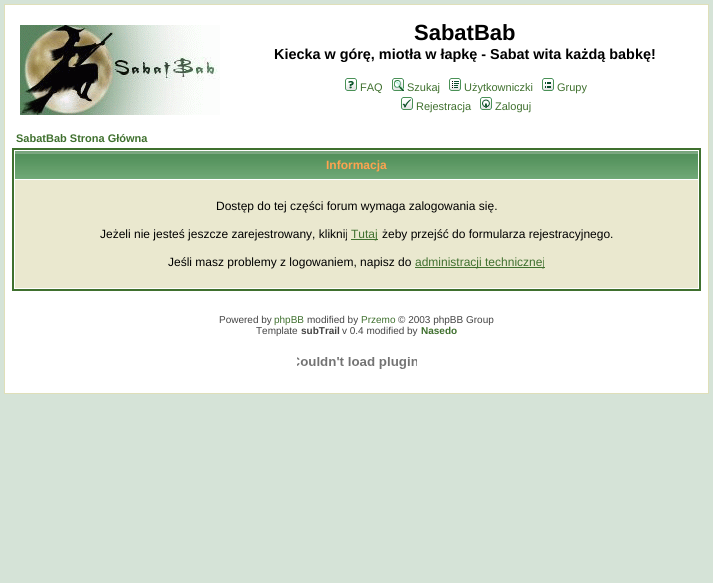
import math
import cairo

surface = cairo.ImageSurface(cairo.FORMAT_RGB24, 713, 583)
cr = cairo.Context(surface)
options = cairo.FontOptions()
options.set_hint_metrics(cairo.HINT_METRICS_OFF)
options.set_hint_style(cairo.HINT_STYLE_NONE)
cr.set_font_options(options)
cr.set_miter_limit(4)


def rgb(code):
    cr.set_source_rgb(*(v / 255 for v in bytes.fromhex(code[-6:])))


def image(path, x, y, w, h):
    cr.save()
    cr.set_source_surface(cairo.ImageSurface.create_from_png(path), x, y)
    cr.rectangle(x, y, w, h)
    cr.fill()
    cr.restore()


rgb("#d5e3d7")
cr.paint()
rgb("#ffffff")
cr.rectangle(4.5, 4.5, 704, 389)
cr.fill_preserve()
rgb("#dfdfb9")
cr.set_line_width(1)
cr.stroke()
image("img/1.png", 20, 25, 200, 90)
image("img/2.png", 345, 78, 12, 13)
image("img/3.png", 392, 78, 12, 13)
image("img/4.png", 449, 78, 12, 13)
image("img/5.png", 542, 78, 12, 13)
image("img/6.png", 401, 97, 12, 13)
image("img/7.png", 480, 97, 12, 13)
cr.rectangle(13, 149, 687, 141)
rgb("#3f702e")
cr.set_line_width(2)
cr.stroke()
image("img/8.png", 15, 151, 683, 28)
for x, y, w, h, color in [
    (15, 180, 683, 108, "#eae8cf"),
    (351, 239, 27, 1, "#3f702e"),
    (415, 267, 130, 1, "#3f702e"),
]:
    rgb(color)
    cr.rectangle(x, y, w, h)
    cr.fill()
image("img/9.png", 297, 357, 120, 12)
cr.select_font_face("Liberation Sans", cairo.FONT_SLANT_NORMAL, cairo.FONT_WEIGHT_BOLD)
cr.set_font_size(22)
rgb("#000000")
cr.move_to(414, 40)
cr.show_text("SabatBab")
cr.set_font_size(14.4)
cr.move_to(274, 59)
cr.show_text("Kiecka w górę, miotła w łapkę - Sabat wita każdą babkę!")
cr.select_font_face("Liberation Sans")
cr.set_font_size(11)
rgb("#3f702e")
for x, y, s in [
    (360, 91, "FAQ"),
    (407, 91, "Szukaj"),
    (464, 91, "Użytkowniczki"),
    (557, 91, "Grupy"),
    (416, 110, "Rejestracja"),
    (495, 110, "Zaloguj"),
]:
    cr.move_to(x, y)
    cr.show_text(s)
cr.select_font_face("Liberation Sans", cairo.FONT_SLANT_NORMAL, cairo.FONT_WEIGHT_BOLD)
cr.move_to(16, 142)
cr.show_text("SabatBab Strona Główna")
cr.set_font_size(12)
rgb("#ffa34f")
cr.move_to(326, 169)
cr.show_text("Informacja")
cr.select_font_face("Liberation Sans")
rgb("#000000")
cr.move_to(216, 210)
cr.show_text("Dostęp do tej części forum wymaga zalogowania się.")
cr.move_to(100, 238)
cr.show_text("Jeżeli nie jesteś jeszcze zarejestrowany, kliknij")
rgb("#3f702e")
cr.move_to(351, 238)
cr.show_text("Tutaj")
rgb("#000000")
cr.move_to(382, 238)
cr.show_text("żeby przejść do formularza rejestracyjnego.")
cr.move_to(168, 266)
cr.show_text("Jeśli masz problemy z logowaniem, napisz do")
rgb("#3f702e")
cr.move_to(415, 266)
cr.show_text("administracji technicznej")
cr.set_font_size(10)
rgb("#444444")
cr.move_to(219, 323)
cr.show_text("Powered by")
rgb("#3f702e")
cr.move_to(274, 323)
cr.show_text("phpBB")
rgb("#444444")
cr.move_to(307, 323)
cr.show_text("modified by")
rgb("#3f702e")
cr.move_to(361, 323)
cr.show_text("Przemo")
rgb("#444444")
cr.move_to(398, 323)
cr.show_text("© 2003 phpBB Group")
cr.move_to(256, 334)
cr.show_text("Template")
cr.select_font_face("Liberation Sans", cairo.FONT_SLANT_NORMAL, cairo.FONT_WEIGHT_BOLD)
cr.move_to(301, 334)
cr.show_text("subTrail")
cr.select_font_face("Liberation Sans")
cr.move_to(342, 334)
cr.show_text("v 0.4 modified by")
cr.select_font_face("Liberation Sans", cairo.FONT_SLANT_NORMAL, cairo.FONT_WEIGHT_BOLD)
rgb("#3f702e")
cr.move_to(421, 334)
cr.show_text("Nasedo")
surface.write_to_png("page.png")
